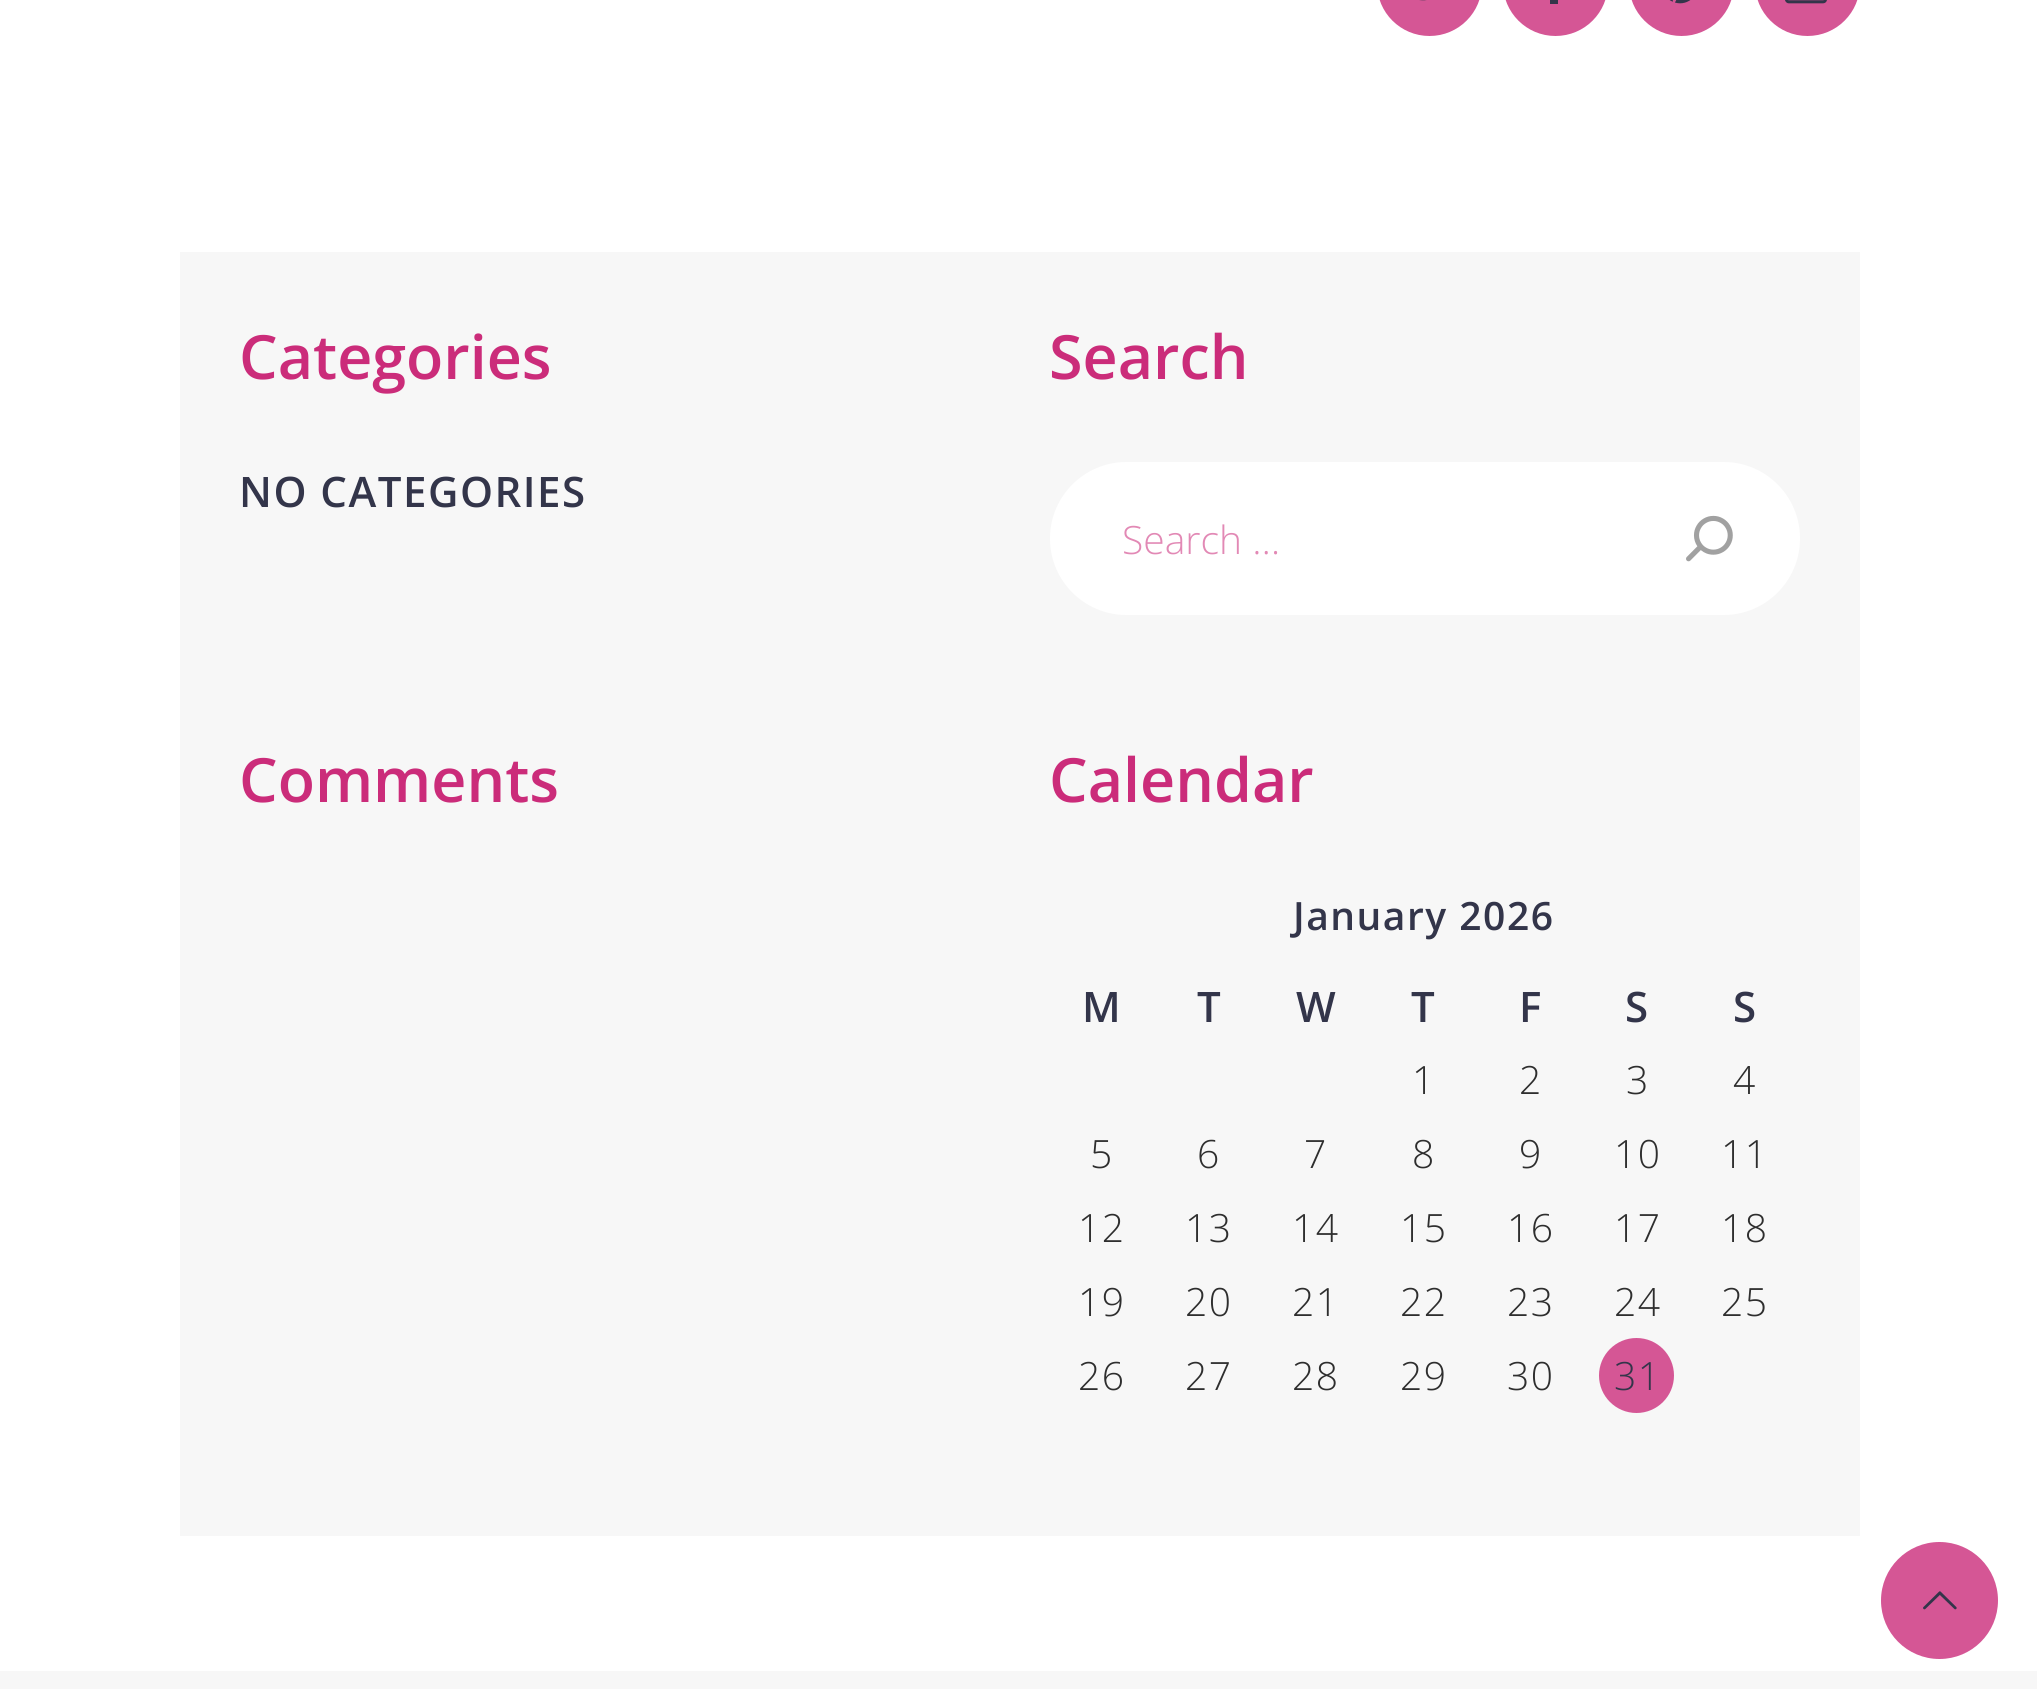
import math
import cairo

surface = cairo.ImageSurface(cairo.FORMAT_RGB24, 2037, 1698)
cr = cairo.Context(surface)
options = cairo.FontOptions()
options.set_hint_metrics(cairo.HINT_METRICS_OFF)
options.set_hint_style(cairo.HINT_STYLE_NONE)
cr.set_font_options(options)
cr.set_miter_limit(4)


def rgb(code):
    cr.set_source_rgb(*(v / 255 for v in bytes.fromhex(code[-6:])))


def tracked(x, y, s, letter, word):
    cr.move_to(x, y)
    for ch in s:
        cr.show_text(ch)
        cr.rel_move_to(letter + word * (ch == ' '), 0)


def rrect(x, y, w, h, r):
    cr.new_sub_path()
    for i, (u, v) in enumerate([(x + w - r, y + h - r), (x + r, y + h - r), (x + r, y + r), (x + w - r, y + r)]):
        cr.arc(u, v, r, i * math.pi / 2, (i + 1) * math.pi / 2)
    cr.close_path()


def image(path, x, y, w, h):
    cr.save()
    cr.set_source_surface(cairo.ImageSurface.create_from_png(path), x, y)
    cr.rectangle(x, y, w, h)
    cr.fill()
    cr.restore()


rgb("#ffffff")
cr.paint()
rgb("#d55695")
rrect(1377, -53, 105, 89, 52.5)
cr.fill()
image("img/1.png", 1419, 0, 8, 1)
rrect(1503, -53, 105, 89, 52.5)
cr.fill()
rgb("#33354a")
cr.rectangle(1550, 0, 8, 4)
cr.fill()
rgb("#d55695")
rrect(1629, -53, 105, 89, 52.5)
cr.fill()
image("img/2.png", 1669, 0, 22, 4)
rrect(1755, -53, 105, 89, 52.5)
cr.fill()
image("img/3.png", 1785, 0, 42, 4)
rgb("#f7f7f7")
cr.rectangle(180, 252, 1680, 1284)
cr.fill()
rgb("#ffffff")
rrect(1050, 462, 750, 153, 76.5)
cr.fill()
image("img/4.png", 1686, 515, 47, 47)
rgb("#d55695")
cr.arc(1636.5, 1375.5, 37.5, 0, 2 * math.pi)
cr.fill()
rgb("#f7f7f7")
cr.rectangle(0, 1671, 2037, 18)
cr.fill()
rgb("#d55695")
cr.arc(1939.5, 1600.5, 58.5, 0, 2 * math.pi)
cr.fill()
image("img/5.png", 1923, 1591, 34, 19)
cr.select_font_face("Open Sans SemiBold")
cr.set_font_size(61)
rgb("#cb2c7a")
cr.move_to(239, 379)
cr.show_text("Categories")
cr.set_font_size(42)
rgb("#33354a")
tracked(239, 507, "NO CATEGORIES", 1.5, 0)
cr.set_font_size(61)
rgb("#cb2c7a")
cr.move_to(1049, 379)
cr.show_text("Search")
cr.select_font_face("Open Sans Light")
cr.set_font_size(39)
rgb("#e289b5")
cr.move_to(1122, 554)
cr.show_text("Search …")
cr.select_font_face("Open Sans SemiBold")
cr.set_font_size(61)
rgb("#cb2c7a")
cr.move_to(239, 802)
cr.show_text("Comments")
cr.move_to(1049, 802)
cr.show_text("Calendar")
cr.set_font_size(39)
rgb("#33354a")
tracked(1293, 930, "January 2026", 1.5, 0)
cr.set_font_size(42)
for x, y, s in [
    (1082, 1022, "M"),
    (1197, 1022, "T"),
    (1296, 1022, "W"),
    (1411, 1022, "T"),
    (1519, 1022, "F"),
    (1625, 1022, "S"),
    (1733, 1022, "S"),
]:
    tracked(x, y, s, 1.5, 0)
cr.select_font_face("Open Sans Light")
cr.set_font_size(39)
rgb("#2e2e2e")
for x, y, s in [
    (1412, 1094, "1"),
    (1519, 1094, "2"),
    (1626, 1094, "3"),
    (1733, 1094, "4"),
    (1090, 1168, "5"),
    (1197, 1168, "6"),
    (1304, 1168, "7"),
    (1412, 1168, "8"),
    (1519, 1168, "9"),
    (1614, 1168, "10"),
    (1721, 1168, "11"),
    (1078, 1242, "12"),
    (1185, 1242, "13"),
    (1292, 1242, "14"),
    (1400, 1242, "15"),
    (1507, 1242, "16"),
    (1614, 1242, "17"),
    (1721, 1242, "18"),
    (1078, 1316, "19"),
    (1185, 1316, "20"),
    (1292, 1316, "21"),
    (1400, 1316, "22"),
    (1507, 1316, "23"),
    (1614, 1316, "24"),
    (1721, 1316, "25"),
    (1078, 1390, "26"),
    (1185, 1390, "27"),
    (1292, 1390, "28"),
    (1400, 1390, "29"),
    (1507, 1390, "30"),
]:
    tracked(x, y, s, 1.5, 0)
rgb("#33354a")
tracked(1614, 1390, "31", 1.5, 0)
surface.write_to_png("page.png")
